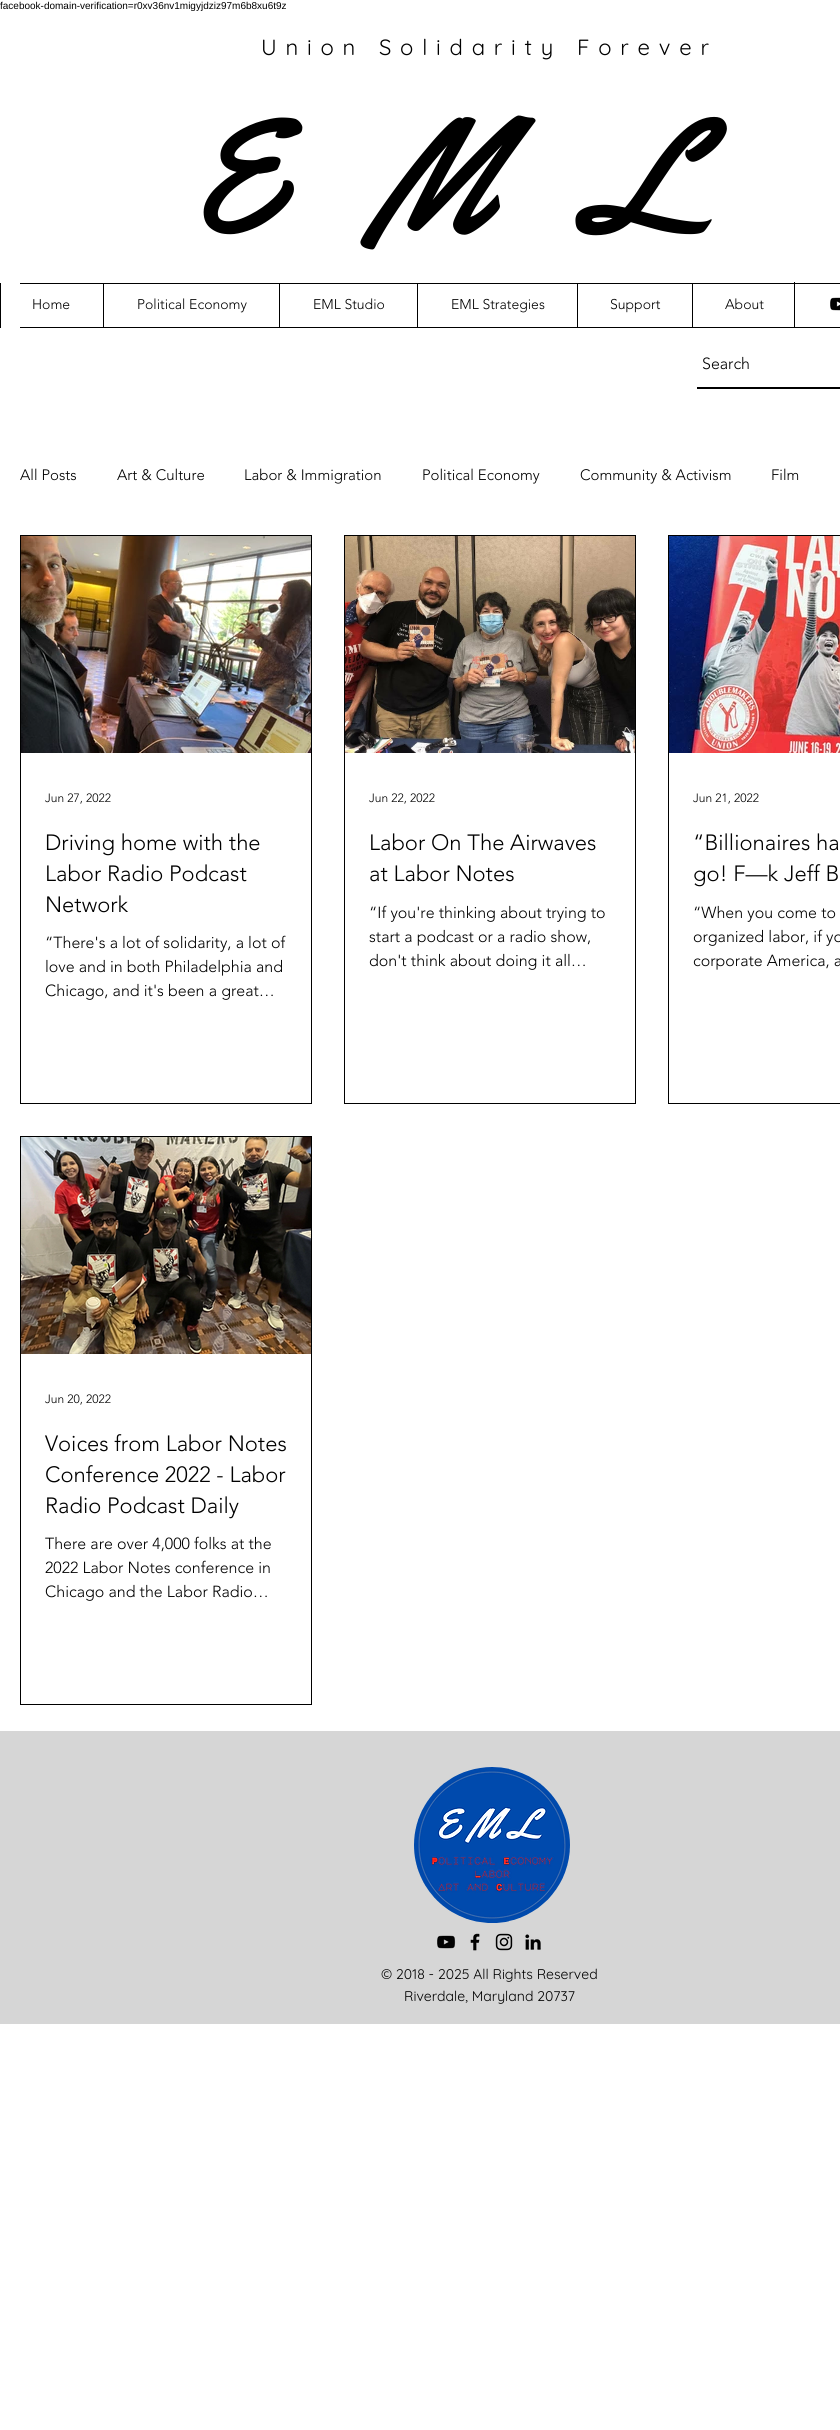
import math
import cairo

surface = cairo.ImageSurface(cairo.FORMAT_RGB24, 840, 2430)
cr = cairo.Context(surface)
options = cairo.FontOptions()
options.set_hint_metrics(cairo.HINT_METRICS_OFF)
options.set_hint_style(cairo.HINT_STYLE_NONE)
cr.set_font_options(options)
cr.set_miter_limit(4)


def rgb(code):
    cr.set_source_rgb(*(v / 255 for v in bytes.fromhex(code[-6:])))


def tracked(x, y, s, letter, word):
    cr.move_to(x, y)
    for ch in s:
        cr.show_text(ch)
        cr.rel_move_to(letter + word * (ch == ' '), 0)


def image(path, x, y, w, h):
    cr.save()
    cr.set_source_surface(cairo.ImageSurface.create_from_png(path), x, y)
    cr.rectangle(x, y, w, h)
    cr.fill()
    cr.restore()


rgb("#ffffff")
cr.paint()
for x, y, w, h, color in [
    (0, 283, 1, 45, "#000000"),
    (103, 283, 1, 44, "#000000"),
    (279, 283, 1, 44, "#000000"),
    (417, 283, 1, 44, "#000000"),
    (577, 283, 1, 44, "#000000"),
    (692, 283, 1, 44, "#000000"),
    (20, 283, 820, 1, "#000000"),
    (794, 282, 1, 45, "#000000"),
]:
    rgb(color)
    cr.rectangle(x, y, w, h)
    cr.fill()
image("img/1.png", 830, 297, 10, 14)
cr.rectangle(20, 327, 820, 1)
cr.fill()
cr.rectangle(697, 387, 143, 2)
cr.fill()
cr.rectangle(20.5, 535.5, 291, 568)
cr.set_line_width(1)
cr.stroke()
image("img/2.png", 21, 536, 290, 217)
cr.rectangle(344.5, 535.5, 291, 568)
cr.stroke()
image("img/3.png", 345, 536, 290, 217)
cr.rectangle(668.5, 535.5, 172, 568)
cr.stroke()
image("img/4.png", 669, 536, 171, 217)
cr.rectangle(20.5, 1136.5, 291, 568)
cr.stroke()
image("img/5.png", 21, 1137, 290, 217)
rgb("#d6d6d6")
cr.rectangle(0, 1731, 840, 293)
cr.fill()
image("img/6.png", 414, 1767, 156, 156)
image("img/7.png", 437, 1935, 19, 14)
image("img/8.png", 470, 1933, 10, 18)
image("img/9.png", 495, 1933, 18, 18)
image("img/10.png", 525, 1934, 16, 16)
cr.select_font_face("Liberation Sans")
cr.set_font_size(10)
rgb("#000000")
cr.move_to(0, 9)
cr.show_text("facebook-domain-verification=r0xv36nv1migyjdziz97m6b8xu6t9z")
rgb("#ffffff")
cr.rectangle(192, 11, 10, 1)
cr.fill()
cr.select_font_face("Quicksand")
cr.set_font_size(22)
rgb("#000000")
tracked(261, 55, "Union Solidarity Forever", 8.8, 0)
cr.select_font_face("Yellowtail")
cr.set_font_size(161)
tracked(189, 232, "EML", 88.5, 0)
cr.select_font_face("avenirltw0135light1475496 Light")
cr.set_font_size(14)
for x, y, s in [
    (32, 309, "Home"),
    (137, 309, "Political Economy"),
    (313, 309, "EML Studio"),
    (451, 309, "EML Strategies"),
    (610, 309, "Support"),
    (725, 309, "About"),
]:
    cr.move_to(x, y)
    cr.show_text(s)
cr.set_font_size(16)
cr.move_to(702, 369)
cr.show_text("Search")
cr.set_font_size(15)
for x, y, s in [
    (20, 480, "All Posts"),
    (117, 480, "Art & Culture"),
    (244, 480, "Labor & Immigration"),
    (422, 480, "Political Economy"),
    (580, 480, "Community & Activism"),
    (771, 480, "Film"),
]:
    cr.move_to(x, y)
    cr.show_text(s)
cr.set_font_size(12)
cr.move_to(45, 802)
cr.show_text("Jun 27, 2022")
cr.set_font_size(22)
for x, y, s in [
    (45, 850, "Driving home with the"),
    (45, 881, "Labor Radio Podcast"),
    (45, 912, "Network"),
]:
    cr.move_to(x, y)
    cr.show_text(s)
cr.set_font_size(16)
for x, y, s in [
    (45, 948, "“There's a lot of solidarity, a lot of"),
    (45, 972, "love and in both Philadelphia and"),
    (45, 996, "Chicago, and it's been a great…"),
]:
    cr.move_to(x, y)
    cr.show_text(s)
cr.set_font_size(12)
cr.move_to(369, 802)
cr.show_text("Jun 22, 2022")
cr.set_font_size(22)
cr.move_to(369, 850)
cr.show_text("Labor On The Airwaves")
cr.move_to(369, 881)
cr.show_text("at Labor Notes")
cr.set_font_size(16)
for x, y, s in [
    (369, 918, "“If you're thinking about trying to"),
    (369, 942, "start a podcast or a radio show,"),
    (369, 966, "don't think about doing it all…"),
]:
    cr.move_to(x, y)
    cr.show_text(s)
cr.set_font_size(12)
cr.move_to(693, 802)
cr.show_text("Jun 21, 2022")
cr.set_font_size(22)
cr.move_to(693, 850)
cr.show_text("“Billionaires ha")
cr.move_to(693, 881)
cr.show_text("go! F—k Jeff B")
cr.set_font_size(16)
for x, y, s in [
    (693, 918, "“When you come to"),
    (693, 942, "organized labor, if yo"),
    (693, 966, "corporate America, a"),
]:
    cr.move_to(x, y)
    cr.show_text(s)
cr.set_font_size(12)
cr.move_to(45, 1403)
cr.show_text("Jun 20, 2022")
cr.set_font_size(22)
for x, y, s in [
    (45, 1451, "Voices from Labor Notes"),
    (45, 1482, "Conference 2022 - Labor"),
    (45, 1513, "Radio Podcast Daily"),
]:
    cr.move_to(x, y)
    cr.show_text(s)
cr.set_font_size(16)
for x, y, s in [
    (45, 1549, "There are over 4,000 folks at the"),
    (45, 1573, "2022 Labor Notes conference in"),
    (45, 1597, "Chicago and the Labor Radio…"),
]:
    cr.move_to(x, y)
    cr.show_text(s)
cr.select_font_face("Quicksand")
cr.set_font_size(14)
cr.move_to(381, 1979)
cr.show_text("© 2018 - 2025 All Rights Reserved")
cr.move_to(404, 2001)
cr.show_text("Riverdale, Maryland 20737")
surface.write_to_png("page.png")
